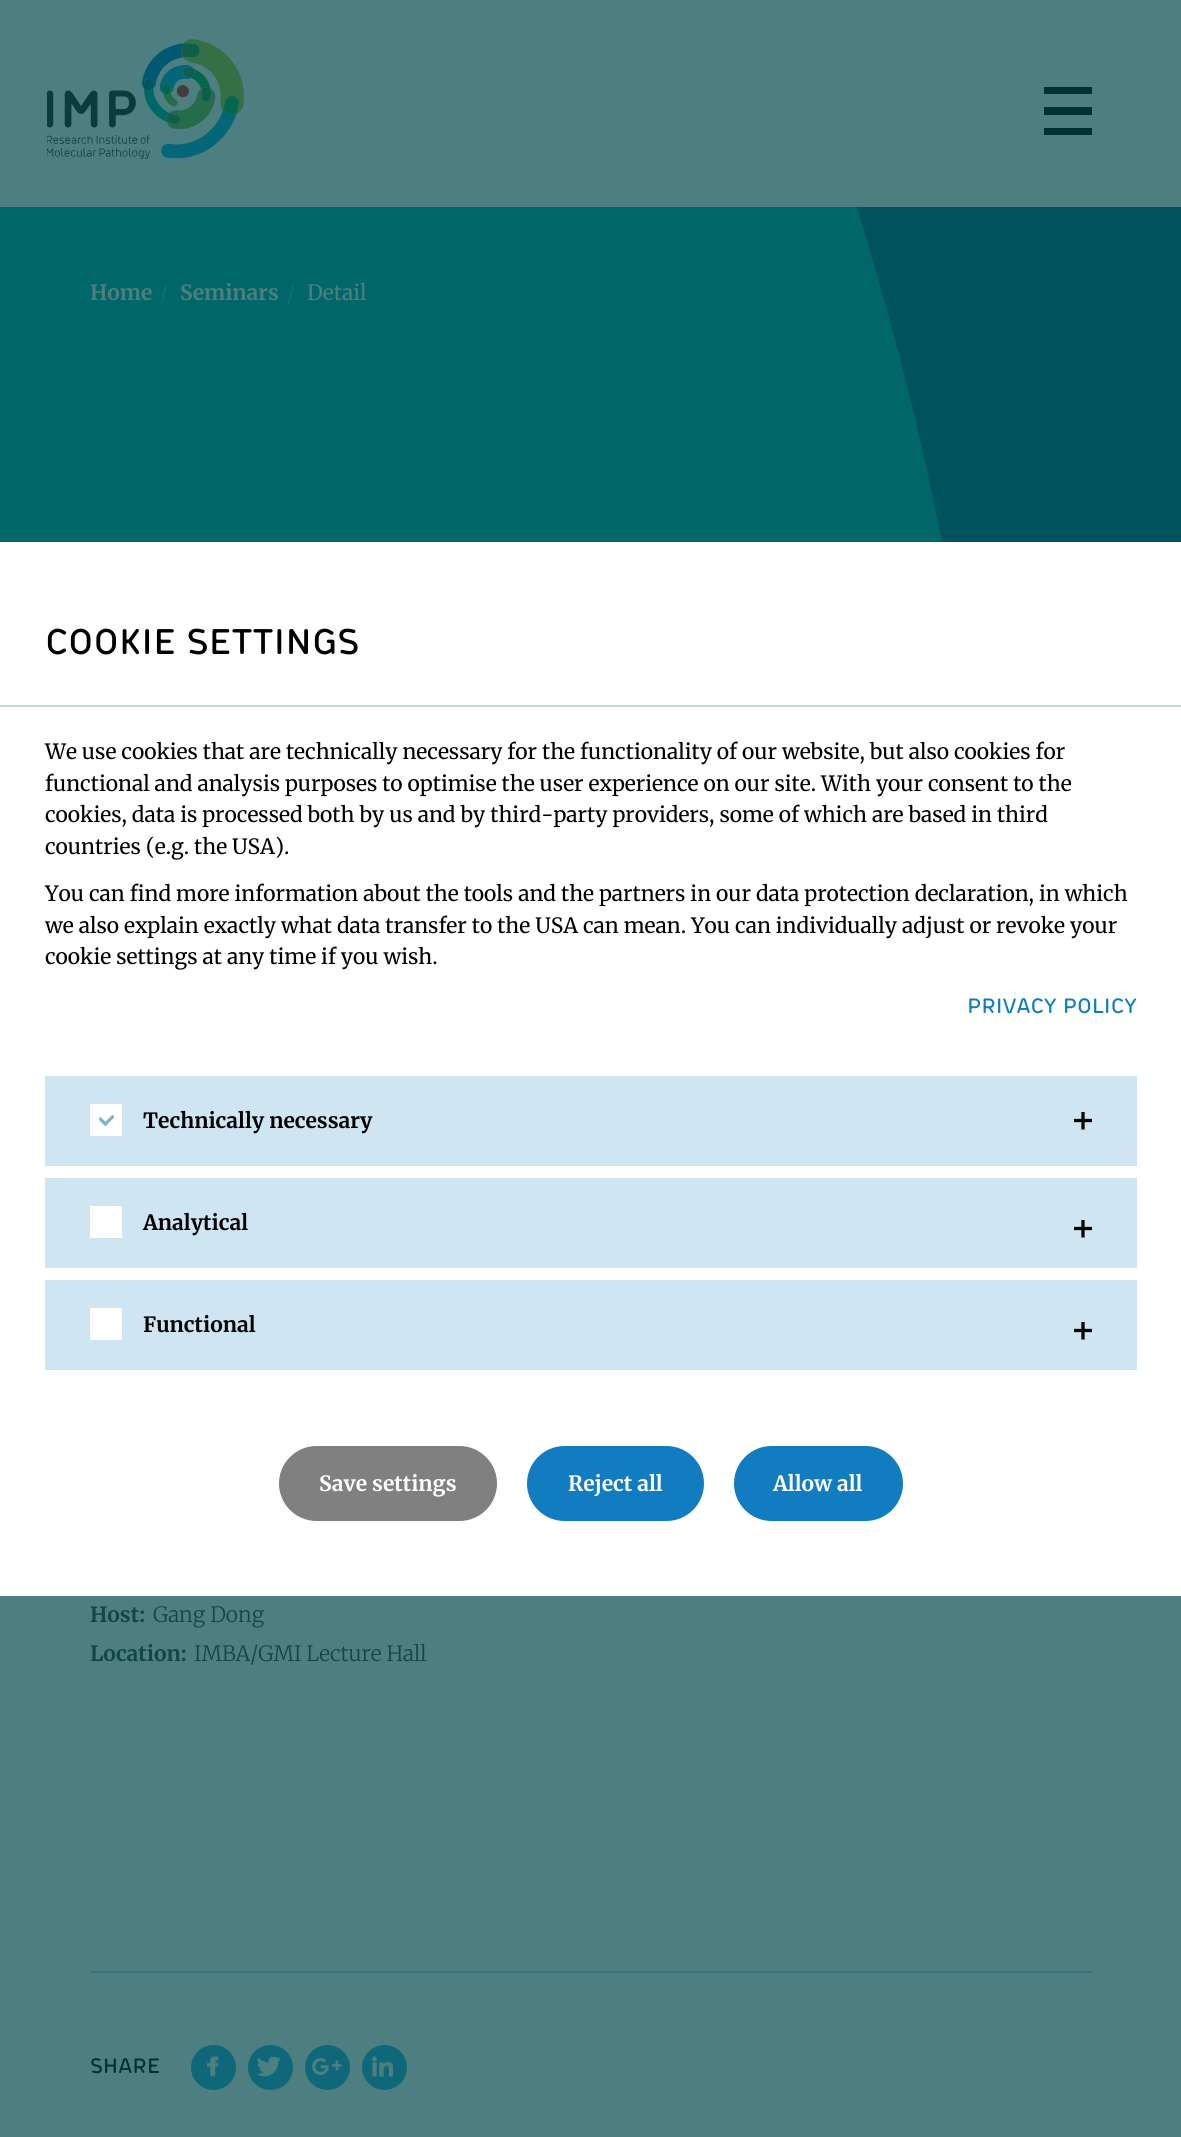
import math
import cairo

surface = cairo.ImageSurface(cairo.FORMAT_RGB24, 1181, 2137)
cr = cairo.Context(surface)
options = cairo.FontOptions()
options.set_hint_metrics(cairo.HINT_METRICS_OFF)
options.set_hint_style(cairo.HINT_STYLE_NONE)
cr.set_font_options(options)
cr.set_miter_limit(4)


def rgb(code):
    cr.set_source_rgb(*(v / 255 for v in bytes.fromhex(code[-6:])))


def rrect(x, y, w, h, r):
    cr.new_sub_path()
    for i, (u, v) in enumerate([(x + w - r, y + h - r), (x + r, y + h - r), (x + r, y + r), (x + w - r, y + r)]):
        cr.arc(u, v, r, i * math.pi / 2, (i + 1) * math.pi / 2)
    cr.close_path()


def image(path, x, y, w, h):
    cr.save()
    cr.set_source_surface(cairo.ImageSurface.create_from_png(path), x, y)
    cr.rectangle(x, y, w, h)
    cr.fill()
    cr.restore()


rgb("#4d7f81")
cr.paint()
image("img/1.png", 47, 39, 197, 120)
rgb("#003235")
cr.set_fill_rule(cairo.FILL_RULE_EVEN_ODD)
cr.new_path()
cr.move_to(1092, 115)
cr.line_to(1044, 115)
cr.line_to(1044, 107)
cr.line_to(1092, 107)
cr.close_path()
cr.move_to(1092, 128)
cr.line_to(1044, 128)
cr.line_to(1044, 135)
cr.line_to(1092, 135)
cr.close_path()
cr.move_to(1092, 87)
cr.line_to(1044, 87)
cr.line_to(1044, 94)
cr.line_to(1092, 94)
cr.close_path()
cr.fill()
rgb("#006668")
cr.rectangle(0, 207, 942, 335)
cr.fill()
image("img/2.png", 857, 207, 324, 335)
rgb("#37737b")
cr.rectangle(90, 1971, 1002, 2)
cr.fill()
rgb("#0e687a")
cr.arc(213.5, 2067.5, 22.5, 0, 2 * math.pi)
cr.fill()
image("img/3.png", 207, 2056, 12, 21)
cr.arc(270.5, 2067.5, 22.5, 0, 2 * math.pi)
cr.fill()
image("img/4.png", 257, 2057, 24, 20)
cr.arc(327.5, 2067.5, 22.5, 0, 2 * math.pi)
cr.fill()
image("img/5.png", 312, 2058, 30, 17)
cr.arc(384.5, 2067.5, 22.5, 0, 2 * math.pi)
cr.fill()
image("img/6.png", 372, 2056, 22, 22)
for x, y, w, h, color in [
    (0, 542, 1181, 1054, "#ffffff"),
    (0, 705, 1181, 2, "#b8d8ec"),
    (45, 1076, 1092, 90, "#d0e5f2"),
    (90, 1104, 32, 32, "#ffffff"),
]:
    rgb(color)
    cr.rectangle(x, y, w, h)
    cr.fill()
image("img/7.png", 99, 1115, 15, 12)
image("img/8.png", 1074, 1112, 18, 18)
rgb("#d0e5f2")
cr.rectangle(45, 1178, 1092, 90)
cr.fill()
rgb("#ffffff")
cr.rectangle(90, 1206, 32, 32)
cr.fill()
image("img/8.png", 1074, 1220, 18, 18)
rgb("#d0e5f2")
cr.rectangle(45, 1280, 1092, 90)
cr.fill()
rgb("#ffffff")
cr.rectangle(90, 1308, 32, 32)
cr.fill()
image("img/8.png", 1074, 1322, 18, 18)
rgb("#808080")
rrect(279, 1446, 218, 75, 37.5)
cr.fill()
rgb("#127cc0")
rrect(527, 1446, 177, 75, 37.5)
cr.fill()
rrect(734, 1446, 169, 75, 37.5)
cr.fill()
cr.select_font_face("Merriweather", cairo.FONT_SLANT_NORMAL, cairo.FONT_WEIGHT_BOLD)
cr.set_font_size(21)
rgb("#4d7f81")
cr.move_to(90, 300)
cr.show_text("Home")
cr.select_font_face("Merriweather Light")
rgb("#176d6f")
cr.move_to(160, 300)
cr.show_text("/")
cr.select_font_face("Merriweather", cairo.FONT_SLANT_NORMAL, cairo.FONT_WEIGHT_BOLD)
rgb("#4d7f81")
cr.move_to(180, 300)
cr.show_text("Seminars")
cr.select_font_face("Merriweather Light")
rgb("#176d6f")
cr.move_to(287, 300)
cr.show_text("/")
cr.select_font_face("Merriweather")
rgb("#4d7f81")
cr.move_to(307, 300)
cr.show_text("Detail")
cr.select_font_face("Merriweather", cairo.FONT_SLANT_NORMAL, cairo.FONT_WEIGHT_BOLD)
rgb("#134648")
cr.move_to(90, 1622)
cr.show_text("Host:")
cr.select_font_face("Merriweather Light")
cr.move_to(153, 1622)
cr.show_text("Gang Dong")
cr.select_font_face("Merriweather", cairo.FONT_SLANT_NORMAL, cairo.FONT_WEIGHT_BOLD)
cr.move_to(90, 1661)
cr.show_text("Location:")
cr.select_font_face("Merriweather Light")
cr.move_to(194, 1661)
cr.show_text("IMBA/GMI Lecture Hall")
cr.select_font_face("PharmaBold", cairo.FONT_SLANT_NORMAL, cairo.FONT_WEIGHT_BOLD)
rgb("#003235")
cr.move_to(90, 2073)
cr.show_text("SHARE")
cr.set_font_size(36)
rgb("#000000")
cr.move_to(45, 654)
cr.show_text("COOKIE SETTINGS")
cr.select_font_face("Merriweather")
cr.set_font_size(21)
for x, y, s in [
    (45, 759, "We use cookies that are technically necessary for the functionality of our website, but also cookies for"),
    (45, 791, "functional and analysis purposes to optimise the user experience on our site. With your consent to the"),
    (45, 822, "cookies, data is processed both by us and by third-party providers, some of which are based in third"),
    (45, 854, "countries (e.g. the USA)."),
    (45, 901, "You can find more information about the tools and the partners in our data protection declaration, in which"),
    (45, 933, "we also explain exactly what data transfer to the USA can mean. You can individually adjust or revoke your"),
    (45, 964, "cookie settings at any time if you wish."),
]:
    cr.move_to(x, y)
    cr.show_text(s)
cr.select_font_face("PharmaBold", cairo.FONT_SLANT_NORMAL, cairo.FONT_WEIGHT_BOLD)
rgb("#127cc0")
cr.move_to(967, 1013)
cr.show_text("PRIVACY POLICY")
cr.select_font_face("Merriweather", cairo.FONT_SLANT_NORMAL, cairo.FONT_WEIGHT_BOLD)
rgb("#000000")
for x, y, s in [
    (143, 1128, "Technically necessary"),
    (143, 1230, "Analytical"),
    (143, 1332, "Functional"),
]:
    cr.move_to(x, y)
    cr.show_text(s)
rgb("#ffffff")
for x, y, s in [
    (319, 1491, "Save settings"),
    (568, 1491, "Reject all"),
    (773, 1491, "Allow all"),
]:
    cr.move_to(x, y)
    cr.show_text(s)
surface.write_to_png("page.png")
